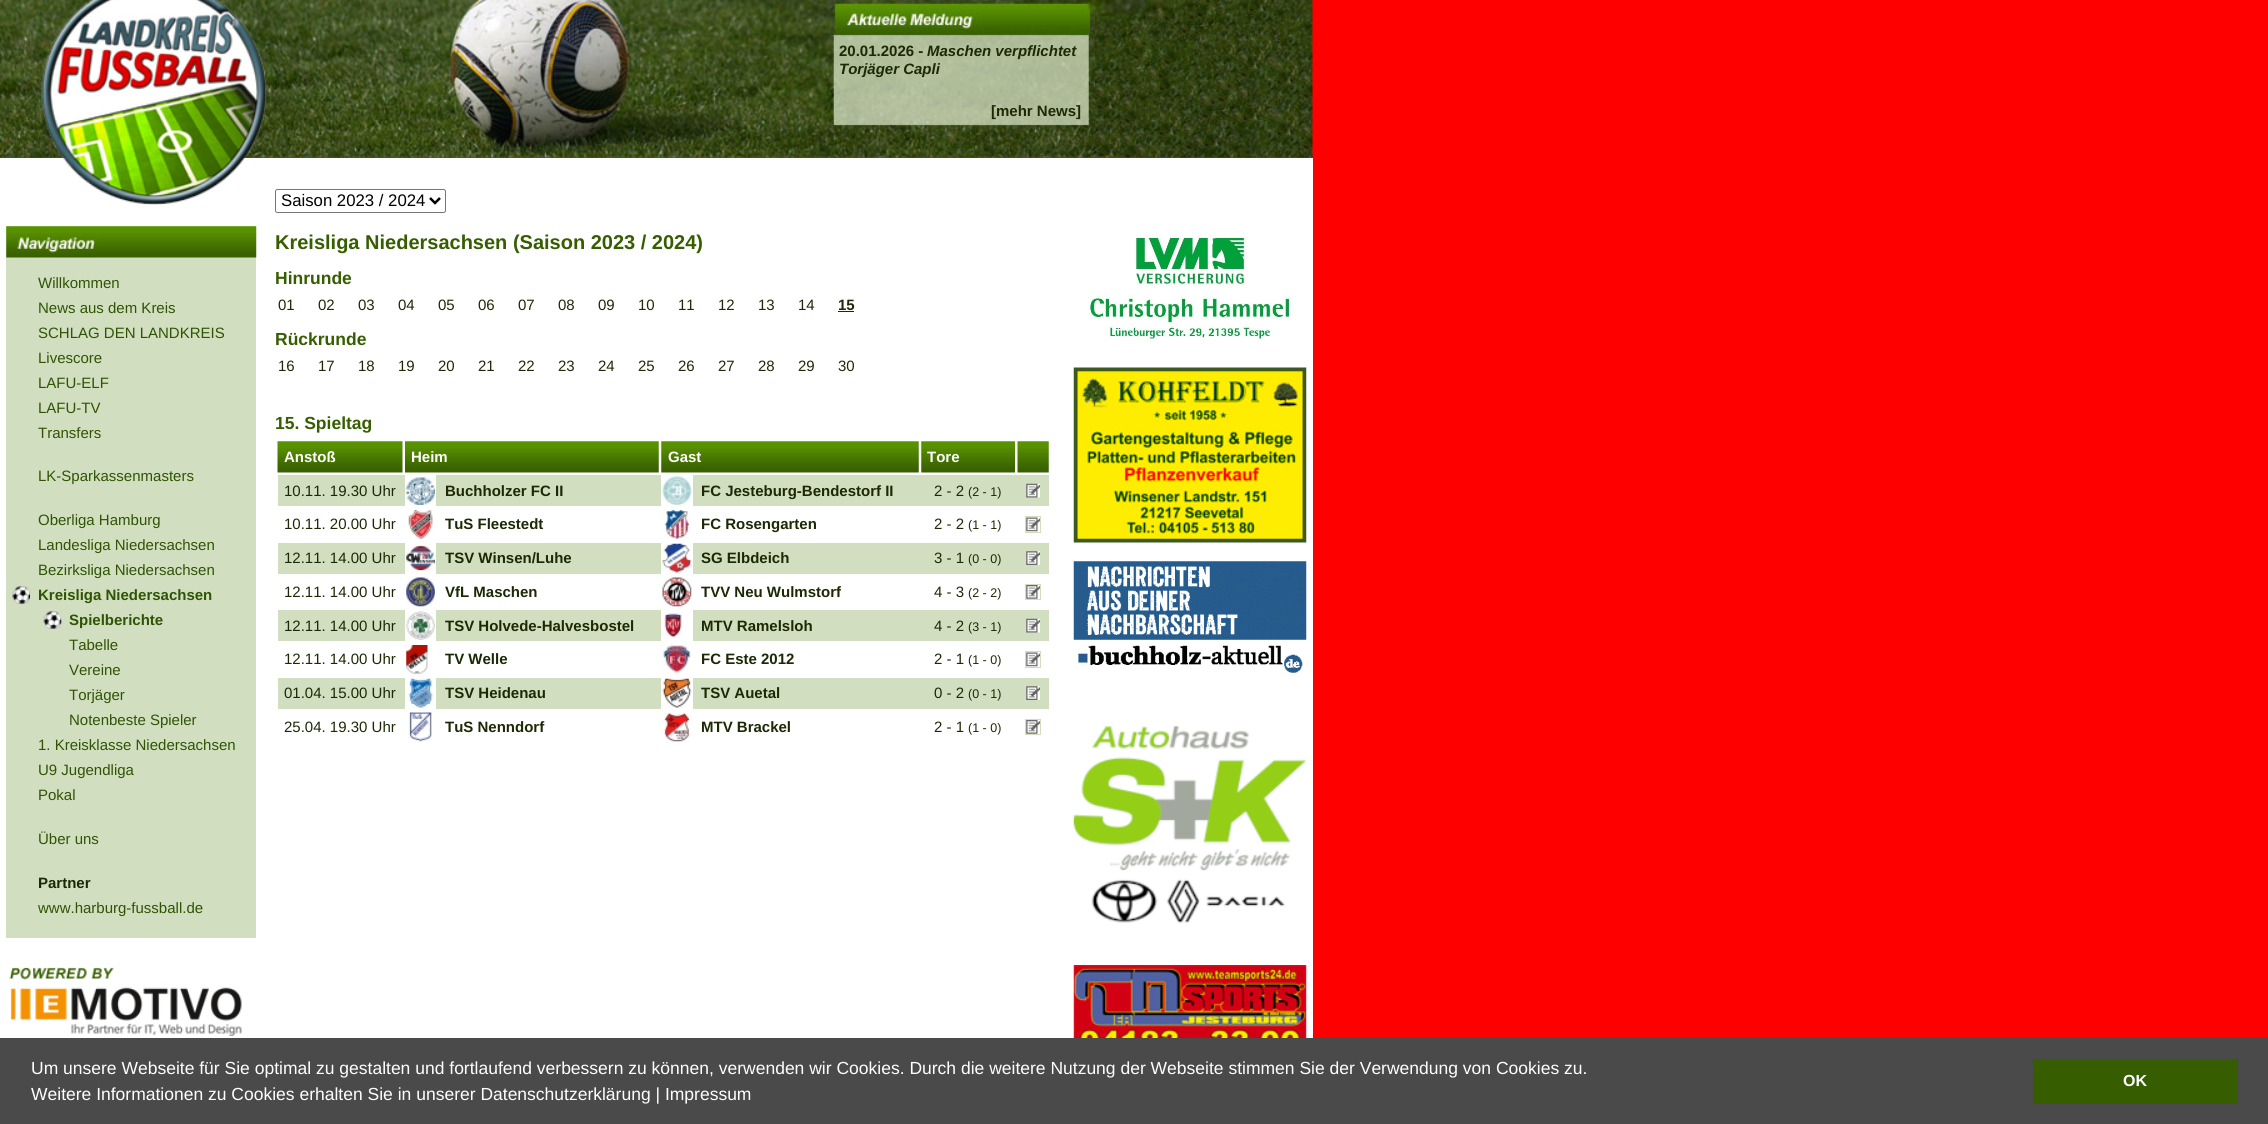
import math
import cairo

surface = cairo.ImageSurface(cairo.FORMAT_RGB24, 2268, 1124)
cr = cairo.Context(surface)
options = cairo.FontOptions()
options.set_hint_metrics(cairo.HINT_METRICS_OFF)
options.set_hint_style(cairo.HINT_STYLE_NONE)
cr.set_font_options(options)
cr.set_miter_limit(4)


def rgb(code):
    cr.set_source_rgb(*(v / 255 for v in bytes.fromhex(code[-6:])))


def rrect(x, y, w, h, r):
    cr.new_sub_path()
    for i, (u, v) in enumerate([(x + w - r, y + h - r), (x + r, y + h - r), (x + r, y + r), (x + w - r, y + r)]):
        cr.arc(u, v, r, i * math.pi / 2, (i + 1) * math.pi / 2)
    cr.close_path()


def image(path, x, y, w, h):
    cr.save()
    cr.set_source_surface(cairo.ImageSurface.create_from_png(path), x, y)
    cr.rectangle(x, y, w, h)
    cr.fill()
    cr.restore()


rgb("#ff0000")
cr.paint()
image("img/1.png", 0, 0, 1313, 158)
rgb("#ffffff")
cr.rectangle(0, 158, 1313, 880)
cr.fill()
image("img/2.png", 41, 0, 226, 205)
rgb("#d1debf")
cr.rectangle(6, 226, 250, 712)
cr.fill()
image("img/3.png", 6, 226, 251, 32)
image("img/4.png", 12, 586, 18, 18)
image("img/5.png", 43, 611, 19, 18)
image("img/6.png", 9, 967, 233, 69)
rrect(275.5, 189.5, 170, 23, 2)
rgb("#767676")
cr.set_line_width(1)
cr.stroke()
cr.new_path()
cr.move_to(430, 198)
cr.line_to(435, 203)
cr.line_to(440, 198)
rgb("#000000")
cr.set_line_width(2.5)
cr.stroke()
rgb("#1c2904")
cr.rectangle(838, 311, 16, 1)
cr.fill()
image("img/7.png", 277, 441, 126, 32)
image("img/8.png", 405, 441, 254, 32)
image("img/9.png", 661, 441, 258, 32)
image("img/10.png", 921, 441, 94, 32)
image("img/11.png", 1017, 441, 32, 32)
rgb("#d1debf")
cr.rectangle(278, 475, 771, 31)
cr.fill()
rgb("#ffffff")
cr.rectangle(405, 475, 31, 31)
cr.fill()
image("img/12.png", 406, 477, 29, 28)
cr.rectangle(661, 475, 32, 31)
cr.fill()
image("img/13.png", 662, 476, 30, 29)
image("img/14.png", 1026, 483, 14, 15)
image("img/15.png", 408, 510, 25, 29)
image("img/16.png", 664, 510, 26, 29)
cr.rectangle(1025.5, 516.5, 15, 16)
rgb("#d1debf")
cr.set_line_width(1)
cr.stroke()
image("img/17.png", 1026, 517, 14, 15)
cr.rectangle(278, 543, 771, 31)
cr.fill()
rgb("#ffffff")
cr.rectangle(405, 543, 31, 31)
cr.fill()
image("img/18.png", 406, 545, 29, 26)
cr.rectangle(661, 543, 32, 31)
cr.fill()
image("img/19.png", 662, 543, 30, 30)
image("img/20.png", 1026, 551, 14, 14)
image("img/21.png", 406, 577, 29, 30)
image("img/22.png", 662, 577, 30, 30)
cr.rectangle(1025.5, 584.5, 15, 15)
rgb("#d1debf")
cr.stroke()
image("img/23.png", 1026, 585, 14, 14)
cr.rectangle(278, 610, 771, 31)
cr.fill()
rgb("#ffffff")
cr.rectangle(405, 610, 31, 31)
cr.fill()
image("img/24.png", 406, 611, 29, 29)
cr.rectangle(661, 610, 32, 31)
cr.fill()
image("img/25.png", 664, 613, 18, 25)
image("img/14.png", 1026, 618, 14, 15)
image("img/26.png", 406, 645, 22, 29)
image("img/27.png", 662, 645, 29, 29)
cr.rectangle(1025.5, 651.5, 15, 16)
rgb("#d1debf")
cr.stroke()
image("img/17.png", 1026, 652, 14, 15)
cr.rectangle(278, 678, 771, 31)
cr.fill()
rgb("#ffffff")
cr.rectangle(405, 678, 31, 31)
cr.fill()
image("img/28.png", 407, 678, 27, 30)
cr.rectangle(661, 678, 32, 31)
cr.fill()
image("img/29.png", 662, 678, 30, 30)
image("img/20.png", 1026, 686, 14, 14)
image("img/30.png", 408, 712, 24, 30)
image("img/31.png", 664, 712, 27, 30)
cr.rectangle(1025.5, 719.5, 15, 15)
rgb("#d1debf")
cr.stroke()
image("img/23.png", 1026, 720, 14, 14)
image("img/32.png", 1090, 237, 203, 104)
image("img/33.png", 1073, 367, 234, 176)
image("img/34.png", 1073, 561, 234, 113)
image("img/35.png", 1073, 726, 234, 197)
image("img/36.png", 1073, 965, 234, 73)
rgb("#4a4a4a")
cr.rectangle(0, 1038, 2268, 86)
cr.fill()
rgb("#365e00")
cr.rectangle(2033, 1059, 205, 45)
cr.fill()
cr.select_font_face("Liberation Sans", cairo.FONT_SLANT_NORMAL, cairo.FONT_WEIGHT_BOLD)
cr.set_font_size(15)
rgb("#1c2904")
cr.move_to(839, 56)
cr.show_text("20.01.2026 -")
cr.select_font_face("Liberation Sans", cairo.FONT_SLANT_ITALIC, cairo.FONT_WEIGHT_BOLD)
cr.move_to(927, 56)
cr.show_text("Maschen verpflichtet")
cr.move_to(839, 74)
cr.show_text("Torjäger Capli")
cr.select_font_face("Liberation Sans", cairo.FONT_SLANT_NORMAL, cairo.FONT_WEIGHT_BOLD)
cr.move_to(991, 116)
cr.show_text("[mehr News]")
cr.select_font_face("Liberation Sans")
rgb("#2f5404")
for x, y, s in [
    (38, 288, "Willkommen"),
    (38, 313, "News aus dem Kreis"),
    (38, 338, "SCHLAG DEN LANDKREIS"),
    (38, 363, "Livescore"),
    (38, 388, "LAFU-ELF"),
    (38, 413, "LAFU-TV"),
    (38, 438, "Transfers"),
    (38, 481, "LK-Sparkassenmasters"),
    (38, 525, "Oberliga Hamburg"),
    (38, 550, "Landesliga Niedersachsen"),
    (38, 575, "Bezirksliga Niedersachsen"),
]:
    cr.move_to(x, y)
    cr.show_text(s)
cr.select_font_face("Liberation Sans", cairo.FONT_SLANT_NORMAL, cairo.FONT_WEIGHT_BOLD)
cr.move_to(38, 600)
cr.show_text("Kreisliga Niedersachsen")
cr.move_to(69, 625)
cr.show_text("Spielberichte")
cr.select_font_face("Liberation Sans")
for x, y, s in [
    (69, 650, "Tabelle"),
    (69, 675, "Vereine"),
    (69, 700, "Torjäger"),
    (69, 725, "Notenbeste Spieler"),
    (38, 750, "1. Kreisklasse Niedersachsen"),
    (38, 775, "U9 Jugendliga"),
    (38, 800, "Pokal"),
    (38, 844, "Über uns"),
]:
    cr.move_to(x, y)
    cr.show_text(s)
cr.select_font_face("Liberation Sans", cairo.FONT_SLANT_NORMAL, cairo.FONT_WEIGHT_BOLD)
rgb("#1c2904")
cr.move_to(38, 888)
cr.show_text("Partner")
cr.select_font_face("Liberation Sans")
rgb("#2f5404")
cr.move_to(38, 913)
cr.show_text("www.harburg-fussball.de")
cr.set_font_size(16.75)
rgb("#000000")
cr.move_to(281, 206)
cr.show_text("Saison 2023 / 2024")
cr.select_font_face("Liberation Sans", cairo.FONT_SLANT_NORMAL, cairo.FONT_WEIGHT_BOLD)
cr.set_font_size(20)
rgb("#365e00")
cr.move_to(275, 249)
cr.show_text("Kreisliga Niedersachsen (Saison 2023 / 2024)")
cr.set_font_size(17.5)
cr.move_to(275, 284)
cr.show_text("Hinrunde")
cr.select_font_face("Liberation Sans")
cr.set_font_size(15)
rgb("#1c2904")
for x, y, s in [
    (278, 310, "01"),
    (318, 310, "02"),
    (358, 310, "03"),
    (398, 310, "04"),
    (438, 310, "05"),
    (478, 310, "06"),
    (518, 310, "07"),
    (558, 310, "08"),
    (598, 310, "09"),
    (638, 310, "10"),
    (678, 310, "11"),
    (718, 310, "12"),
    (758, 310, "13"),
    (798, 310, "14"),
]:
    cr.move_to(x, y)
    cr.show_text(s)
cr.select_font_face("Liberation Sans", cairo.FONT_SLANT_NORMAL, cairo.FONT_WEIGHT_BOLD)
cr.move_to(838, 310)
cr.show_text("15")
cr.set_font_size(17.5)
rgb("#365e00")
cr.move_to(275, 345)
cr.show_text("Rückrunde")
cr.select_font_face("Liberation Sans")
cr.set_font_size(15)
rgb("#1c2904")
for x, y, s in [
    (278, 371, "16"),
    (318, 371, "17"),
    (358, 371, "18"),
    (398, 371, "19"),
    (438, 371, "20"),
    (478, 371, "21"),
    (518, 371, "22"),
    (558, 371, "23"),
    (598, 371, "24"),
    (638, 371, "25"),
    (678, 371, "26"),
    (718, 371, "27"),
    (758, 371, "28"),
    (798, 371, "29"),
    (838, 371, "30"),
]:
    cr.move_to(x, y)
    cr.show_text(s)
cr.select_font_face("Liberation Sans", cairo.FONT_SLANT_NORMAL, cairo.FONT_WEIGHT_BOLD)
cr.set_font_size(17.5)
rgb("#365e00")
cr.move_to(275, 429)
cr.show_text("15. Spieltag")
cr.set_font_size(15)
rgb("#ffffff")
for x, y, s in [
    (284, 462, "Anstoß"),
    (411, 462, "Heim"),
    (668, 462, "Gast"),
    (927, 462, "Tore"),
]:
    cr.move_to(x, y)
    cr.show_text(s)
cr.select_font_face("Liberation Sans")
rgb("#1c2904")
cr.move_to(284, 496)
cr.show_text("10.11. 19.30 Uhr")
cr.select_font_face("Liberation Sans", cairo.FONT_SLANT_NORMAL, cairo.FONT_WEIGHT_BOLD)
cr.move_to(445, 496)
cr.show_text("Buchholzer FC II")
cr.move_to(701, 496)
cr.show_text("FC Jesteburg-Bendestorf II")
cr.select_font_face("Liberation Sans")
cr.move_to(934, 496)
cr.show_text("2 - 2")
cr.set_font_size(12.5)
cr.move_to(968, 496)
cr.show_text("(2 - 1)")
cr.set_font_size(15)
cr.move_to(284, 529)
cr.show_text("10.11. 20.00 Uhr")
cr.select_font_face("Liberation Sans", cairo.FONT_SLANT_NORMAL, cairo.FONT_WEIGHT_BOLD)
cr.move_to(445, 529)
cr.show_text("TuS Fleestedt")
cr.move_to(701, 529)
cr.show_text("FC Rosengarten")
cr.select_font_face("Liberation Sans")
cr.move_to(934, 529)
cr.show_text("2 - 2")
cr.set_font_size(12.5)
cr.move_to(968, 529)
cr.show_text("(1 - 1)")
cr.set_font_size(15)
cr.move_to(284, 563)
cr.show_text("12.11. 14.00 Uhr")
cr.select_font_face("Liberation Sans", cairo.FONT_SLANT_NORMAL, cairo.FONT_WEIGHT_BOLD)
cr.move_to(445, 563)
cr.show_text("TSV Winsen/Luhe")
cr.move_to(701, 563)
cr.show_text("SG Elbdeich")
cr.select_font_face("Liberation Sans")
cr.move_to(934, 563)
cr.show_text("3 - 1")
cr.set_font_size(12.5)
cr.move_to(968, 563)
cr.show_text("(0 - 0)")
cr.set_font_size(15)
cr.move_to(284, 597)
cr.show_text("12.11. 14.00 Uhr")
cr.select_font_face("Liberation Sans", cairo.FONT_SLANT_NORMAL, cairo.FONT_WEIGHT_BOLD)
cr.move_to(445, 597)
cr.show_text("VfL Maschen")
cr.move_to(701, 597)
cr.show_text("TVV Neu Wulmstorf")
cr.select_font_face("Liberation Sans")
cr.move_to(934, 597)
cr.show_text("4 - 3")
cr.set_font_size(12.5)
cr.move_to(968, 597)
cr.show_text("(2 - 2)")
cr.set_font_size(15)
cr.move_to(284, 631)
cr.show_text("12.11. 14.00 Uhr")
cr.select_font_face("Liberation Sans", cairo.FONT_SLANT_NORMAL, cairo.FONT_WEIGHT_BOLD)
cr.move_to(445, 631)
cr.show_text("TSV Holvede-Halvesbostel")
cr.move_to(701, 631)
cr.show_text("MTV Ramelsloh")
cr.select_font_face("Liberation Sans")
cr.move_to(934, 631)
cr.show_text("4 - 2")
cr.set_font_size(12.5)
cr.move_to(968, 631)
cr.show_text("(3 - 1)")
cr.set_font_size(15)
cr.move_to(284, 664)
cr.show_text("12.11. 14.00 Uhr")
cr.select_font_face("Liberation Sans", cairo.FONT_SLANT_NORMAL, cairo.FONT_WEIGHT_BOLD)
cr.move_to(445, 664)
cr.show_text("TV Welle")
cr.move_to(701, 664)
cr.show_text("FC Este 2012")
cr.select_font_face("Liberation Sans")
cr.move_to(934, 664)
cr.show_text("2 - 1")
cr.set_font_size(12.5)
cr.move_to(968, 664)
cr.show_text("(1 - 0)")
cr.set_font_size(15)
cr.move_to(284, 698)
cr.show_text("01.04. 15.00 Uhr")
cr.select_font_face("Liberation Sans", cairo.FONT_SLANT_NORMAL, cairo.FONT_WEIGHT_BOLD)
cr.move_to(445, 698)
cr.show_text("TSV Heidenau")
cr.move_to(701, 698)
cr.show_text("TSV Auetal")
cr.select_font_face("Liberation Sans")
cr.move_to(934, 698)
cr.show_text("0 - 2")
cr.set_font_size(12.5)
cr.move_to(968, 698)
cr.show_text("(0 - 1)")
cr.set_font_size(15)
cr.move_to(284, 732)
cr.show_text("25.04. 19.30 Uhr")
cr.select_font_face("Liberation Sans", cairo.FONT_SLANT_NORMAL, cairo.FONT_WEIGHT_BOLD)
cr.move_to(445, 732)
cr.show_text("TuS Nenndorf")
cr.move_to(701, 732)
cr.show_text("MTV Brackel")
cr.select_font_face("Liberation Sans")
cr.move_to(934, 732)
cr.show_text("2 - 1")
cr.set_font_size(12.5)
cr.move_to(968, 732)
cr.show_text("(1 - 0)")
cr.set_font_size(17.5)
rgb("#ffffff")
cr.move_to(31, 1074)
cr.show_text("Um unsere Webseite für Sie optimal zu gestalten und fortlaufend verbessern zu können, verwenden wir Cookies. Durch die weitere Nutzung der Webseite stimmen Sie der Verwendung von Cookies zu.")
cr.move_to(31, 1100)
cr.show_text("Weitere Informationen zu Cookies erhalten Sie in unserer Datenschutzerklärung | Impressum")
cr.select_font_face("Liberation Sans", cairo.FONT_SLANT_NORMAL, cairo.FONT_WEIGHT_BOLD)
cr.set_font_size(16)
cr.move_to(2123, 1086)
cr.show_text("OK")
surface.write_to_png("page.png")
